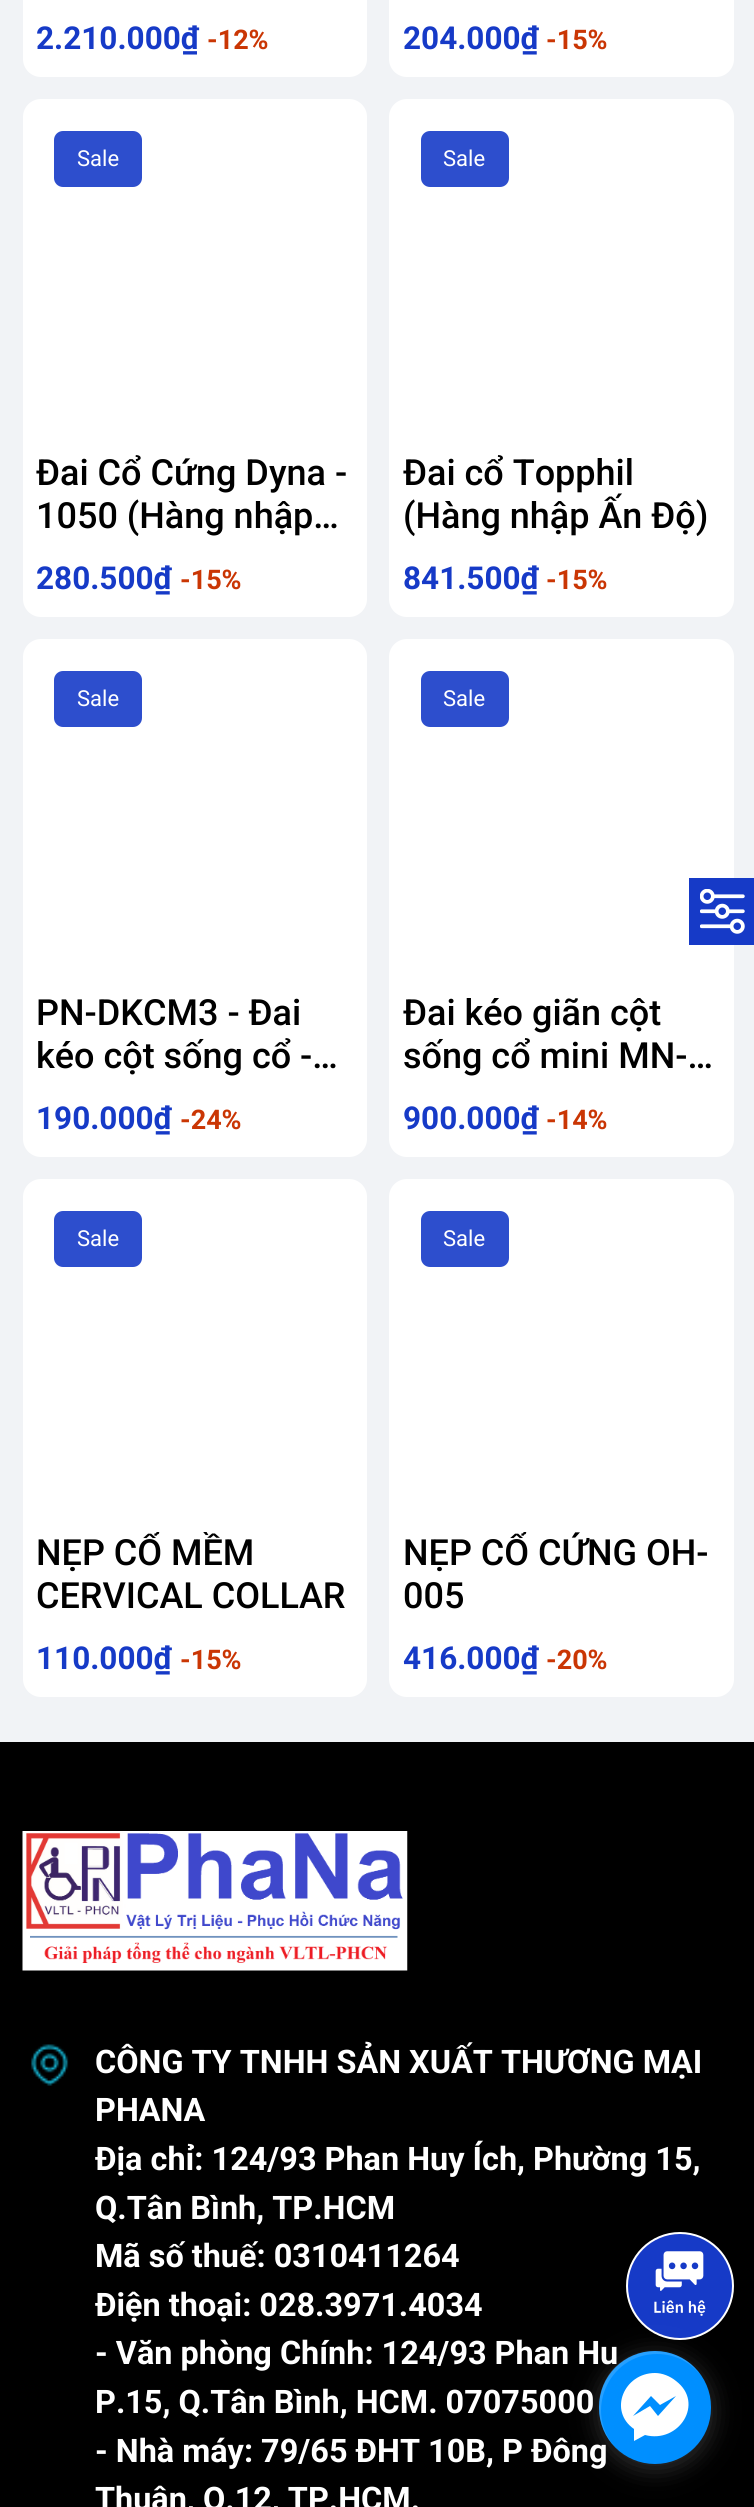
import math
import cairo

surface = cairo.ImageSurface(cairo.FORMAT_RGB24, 754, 2507)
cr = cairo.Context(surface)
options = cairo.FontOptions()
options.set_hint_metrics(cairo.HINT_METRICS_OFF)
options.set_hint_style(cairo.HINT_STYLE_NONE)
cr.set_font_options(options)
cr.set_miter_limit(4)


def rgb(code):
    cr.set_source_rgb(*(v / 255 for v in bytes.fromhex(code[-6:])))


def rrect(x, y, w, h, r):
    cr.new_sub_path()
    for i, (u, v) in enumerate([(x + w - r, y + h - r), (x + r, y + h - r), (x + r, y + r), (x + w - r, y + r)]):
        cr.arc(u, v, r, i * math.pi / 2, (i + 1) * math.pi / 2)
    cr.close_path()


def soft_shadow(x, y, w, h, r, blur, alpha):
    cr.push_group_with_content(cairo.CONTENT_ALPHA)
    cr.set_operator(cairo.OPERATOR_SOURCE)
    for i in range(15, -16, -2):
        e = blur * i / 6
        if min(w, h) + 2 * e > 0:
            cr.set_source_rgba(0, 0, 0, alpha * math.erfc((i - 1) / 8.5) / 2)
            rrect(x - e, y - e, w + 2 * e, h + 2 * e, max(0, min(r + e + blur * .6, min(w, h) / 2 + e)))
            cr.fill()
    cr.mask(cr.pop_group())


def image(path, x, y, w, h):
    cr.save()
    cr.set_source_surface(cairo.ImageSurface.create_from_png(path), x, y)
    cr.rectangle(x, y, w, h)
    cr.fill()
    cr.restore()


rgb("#f1f3f6")
cr.paint()
rgb("#ffffff")
rrect(23, -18, 344, 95, 18)
cr.fill()
rrect(389, -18, 345, 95, 18)
cr.fill()
rrect(23, 99, 344, 518, 18)
cr.fill()
rgb("#2d4ecd")
rrect(54, 131, 88, 56, 9)
cr.fill()
rgb("#ffffff")
rrect(389, 99, 345, 518, 18)
cr.fill()
rgb("#2d4ecd")
rrect(421, 131, 88, 56, 9)
cr.fill()
rgb("#ffffff")
rrect(23, 639, 344, 518, 18)
cr.fill()
rgb("#2d4ecd")
rrect(54, 671, 88, 56, 9)
cr.fill()
rgb("#ffffff")
rrect(389, 639, 345, 518, 18)
cr.fill()
rgb("#2d4ecd")
rrect(421, 671, 88, 56, 9)
cr.fill()
rgb("#ffffff")
rrect(23, 1179, 344, 518, 18)
cr.fill()
rgb("#2d4ecd")
rrect(54, 1211, 88, 56, 9)
cr.fill()
rgb("#ffffff")
rrect(389, 1179, 345, 518, 18)
cr.fill()
rgb("#2d4ecd")
rrect(421, 1211, 88, 56, 9)
cr.fill()
rgb("#163ac7")
cr.rectangle(689, 878, 65, 67)
cr.fill()
image("img/1.png", 700, 889, 45, 45)
rgb("#000000")
cr.rectangle(0, 1742, 754, 765)
cr.fill()
image("img/2.png", 22, 1831, 386, 140)
image("img/3.png", 31, 2044, 38, 42)
rgb("#163ac7")
cr.arc(680, 2286, 53, 0, 2 * math.pi)
cr.fill_preserve()
rgb("#ffffff")
cr.stroke()
image("img/4.png", 654, 2251, 52, 65)
rgb("#808080")
soft_shadow(599, 2356, 112, 112, 56, 12.5, 0.4)
cr.select_font_face("Roboto", cairo.FONT_SLANT_NORMAL, cairo.FONT_WEIGHT_BOLD)
cr.set_font_size(31.5)
rgb("#163ac7")
cr.move_to(36, 49)
cr.show_text("2.210.000₫")
cr.set_font_size(27)
rgb("#ca3604")
cr.move_to(207, 49)
cr.show_text("-12%")
cr.set_font_size(31.5)
rgb("#163ac7")
cr.move_to(403, 49)
cr.show_text("204.000₫")
cr.set_font_size(27)
rgb("#ca3604")
cr.move_to(546, 49)
cr.show_text("-15%")
cr.select_font_face("Roboto")
cr.set_font_size(22)
rgb("#ffffff")
cr.move_to(77, 166)
cr.show_text("Sale")
cr.select_font_face("Roboto Medium")
cr.set_font_size(36)
rgb("#000000")
cr.move_to(36, 485)
cr.show_text("Đai Cổ Cứng Dyna -")
cr.move_to(36, 528)
cr.show_text("1050 (Hàng nhập…")
cr.select_font_face("Roboto", cairo.FONT_SLANT_NORMAL, cairo.FONT_WEIGHT_BOLD)
cr.set_font_size(31.5)
rgb("#163ac7")
cr.move_to(36, 589)
cr.show_text("280.500₫")
cr.set_font_size(27)
rgb("#ca3604")
cr.move_to(180, 589)
cr.show_text("-15%")
cr.select_font_face("Roboto")
cr.set_font_size(22)
rgb("#ffffff")
cr.move_to(443, 166)
cr.show_text("Sale")
cr.select_font_face("Roboto Medium")
cr.set_font_size(36)
rgb("#000000")
cr.move_to(403, 485)
cr.show_text("Đai cổ Topphil")
cr.move_to(403, 528)
cr.show_text("(Hàng nhập Ấn Độ)")
cr.select_font_face("Roboto", cairo.FONT_SLANT_NORMAL, cairo.FONT_WEIGHT_BOLD)
cr.set_font_size(31.5)
rgb("#163ac7")
cr.move_to(403, 589)
cr.show_text("841.500₫")
cr.set_font_size(27)
rgb("#ca3604")
cr.move_to(546, 589)
cr.show_text("-15%")
cr.select_font_face("Roboto")
cr.set_font_size(22)
rgb("#ffffff")
cr.move_to(77, 706)
cr.show_text("Sale")
cr.select_font_face("Roboto Medium")
cr.set_font_size(36)
rgb("#000000")
cr.move_to(36, 1025)
cr.show_text("PN-DKCM3 - Đai")
cr.move_to(36, 1068)
cr.show_text("kéo cột sống cổ -…")
cr.select_font_face("Roboto", cairo.FONT_SLANT_NORMAL, cairo.FONT_WEIGHT_BOLD)
cr.set_font_size(31.5)
rgb("#163ac7")
cr.move_to(36, 1129)
cr.show_text("190.000₫")
cr.set_font_size(27)
rgb("#ca3604")
cr.move_to(180, 1129)
cr.show_text("-24%")
cr.select_font_face("Roboto")
cr.set_font_size(22)
rgb("#ffffff")
cr.move_to(443, 706)
cr.show_text("Sale")
cr.select_font_face("Roboto Medium")
cr.set_font_size(36)
rgb("#000000")
cr.move_to(403, 1025)
cr.show_text("Đai kéo giãn cột")
cr.move_to(403, 1068)
cr.show_text("sống cổ mini MN-…")
cr.select_font_face("Roboto", cairo.FONT_SLANT_NORMAL, cairo.FONT_WEIGHT_BOLD)
cr.set_font_size(31.5)
rgb("#163ac7")
cr.move_to(403, 1129)
cr.show_text("900.000₫")
cr.set_font_size(27)
rgb("#ca3604")
cr.move_to(546, 1129)
cr.show_text("-14%")
cr.select_font_face("Roboto")
cr.set_font_size(22)
rgb("#ffffff")
cr.move_to(77, 1246)
cr.show_text("Sale")
cr.save()
cr.rectangle(36, 1532, 317, 86)
cr.clip()
cr.select_font_face("Roboto Medium")
cr.set_font_size(36)
rgb("#000000")
cr.move_to(36, 1565)
cr.show_text("NẸP CỔ MỀM")
cr.restore()
cr.select_font_face("Roboto Medium")
cr.set_font_size(36)
rgb("#000000")
cr.move_to(36, 1608)
cr.show_text("CERVICAL COLLAR")
cr.select_font_face("Roboto", cairo.FONT_SLANT_NORMAL, cairo.FONT_WEIGHT_BOLD)
cr.set_font_size(31.5)
rgb("#163ac7")
cr.move_to(36, 1669)
cr.show_text("110.000₫")
cr.set_font_size(27)
rgb("#ca3604")
cr.move_to(180, 1669)
cr.show_text("-15%")
cr.select_font_face("Roboto")
cr.set_font_size(22)
rgb("#ffffff")
cr.move_to(443, 1246)
cr.show_text("Sale")
cr.save()
cr.rectangle(403, 1532, 317, 86)
cr.clip()
cr.select_font_face("Roboto Medium")
cr.set_font_size(36)
rgb("#000000")
cr.move_to(403, 1565)
cr.show_text("NẸP CỔ CỨNG")
cr.restore()
cr.select_font_face("Roboto Medium")
cr.set_font_size(36)
rgb("#000000")
cr.move_to(646, 1565)
cr.show_text("OH-")
cr.move_to(403, 1608)
cr.show_text("005")
cr.select_font_face("Roboto", cairo.FONT_SLANT_NORMAL, cairo.FONT_WEIGHT_BOLD)
cr.set_font_size(31.5)
rgb("#163ac7")
cr.move_to(403, 1669)
cr.show_text("416.000₫")
cr.set_font_size(27)
rgb("#ca3604")
cr.move_to(546, 1669)
cr.show_text("-20%")
cr.set_font_size(32.4)
rgb("#ffffff")
for x, y, s in [
    (95, 2073, "CÔNG TY TNHH SẢN XUẤT THƯƠNG MẠI"),
    (95, 2121, "PHANA"),
    (95, 2170, "Địa chỉ: 124/93 Phan Huy Ích, Phường 15,"),
    (95, 2219, "Q.Tân Bình, TP.HCM"),
    (95, 2267, "Mã số thuế: 0310411264"),
    (95, 2316, "Điện thoại: 028.3971.4034"),
    (95, 2364, "- Văn phòng Chính: 124/93 Phan Hu"),
    (95, 2413, "P.15, Q.Tân Bình, HCM. 07075000"),
    (95, 2462, "- Nhà máy: 79/65 ĐHT 10B, P Đông"),
    (95, 2510, "Thuận, Q.12, TP.HCM."),
]:
    cr.move_to(x, y)
    cr.show_text(s)
rgb("#008fff")
rrect(599, 2351, 112, 113, 56)
cr.fill()
cr.set_source_rgba(1, 1, 1, 0.15)
cr.new_path()
cr.move_to(657, 2354)
cr.curve_to(676, 2354, 692, 2363, 702, 2377)
cr.curve_to(683, 2347, 641, 2342, 615, 2367)
cr.curve_to(593, 2389, 594, 2427, 616, 2448)
cr.curve_to(583, 2413, 608, 2354, 657, 2354)
cr.close_path()
cr.fill()
rgb("#ffffff")
cr.new_path()
cr.move_to(655, 2373)
cr.curve_to(624, 2373, 608, 2411, 634, 2429)
cr.line_to(634, 2441)
cr.line_to(645, 2435)
cr.curve_to(679, 2444, 705, 2403, 676, 2381)
cr.curve_to(670, 2376, 662, 2373, 655, 2373)
cr.close_path()
cr.move_to(658, 2416)
cr.line_to(650, 2406)
cr.line_to(633, 2416)
cr.line_to(651, 2396)
cr.line_to(660, 2405)
cr.line_to(676, 2396)
cr.close_path()
cr.fill()
surface.write_to_png("page.png")
